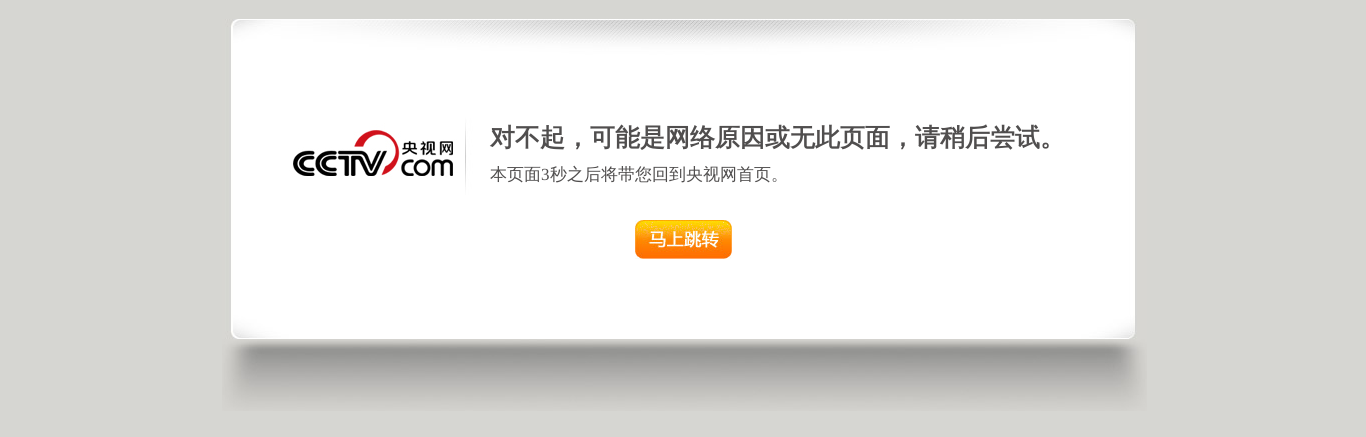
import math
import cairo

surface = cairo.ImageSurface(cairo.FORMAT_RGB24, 1366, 437)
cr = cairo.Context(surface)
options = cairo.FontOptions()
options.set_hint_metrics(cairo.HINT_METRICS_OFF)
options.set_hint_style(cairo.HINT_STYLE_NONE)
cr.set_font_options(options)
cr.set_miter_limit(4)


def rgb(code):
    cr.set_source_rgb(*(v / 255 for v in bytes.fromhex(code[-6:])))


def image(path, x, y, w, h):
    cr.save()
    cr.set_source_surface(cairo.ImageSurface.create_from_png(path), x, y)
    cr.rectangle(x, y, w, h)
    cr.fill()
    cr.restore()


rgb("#d6d6d2")
cr.paint()
image("img/1.png", 222, 19, 925, 392)
image("img/2.png", 635, 220, 97, 39)
cr.select_font_face("WenQuanYi Zen Hei", cairo.FONT_SLANT_NORMAL, cairo.FONT_WEIGHT_BOLD)
cr.set_font_size(25)
rgb("#504e4e")
cr.move_to(490, 146)
cr.show_text("对不起，可能是网络原因或无此页面，请稍后尝试。")
cr.select_font_face("WenQuanYi Zen Hei Medium")
cr.set_font_size(17)
cr.move_to(490, 180)
cr.show_text("本页面")
cr.select_font_face("Liberation Serif")
cr.move_to(541, 180)
cr.show_text("3")
cr.select_font_face("WenQuanYi Zen Hei Medium")
cr.move_to(550, 180)
cr.show_text("秒之后将带您回到央视网首页。")
surface.write_to_png("page.png")
